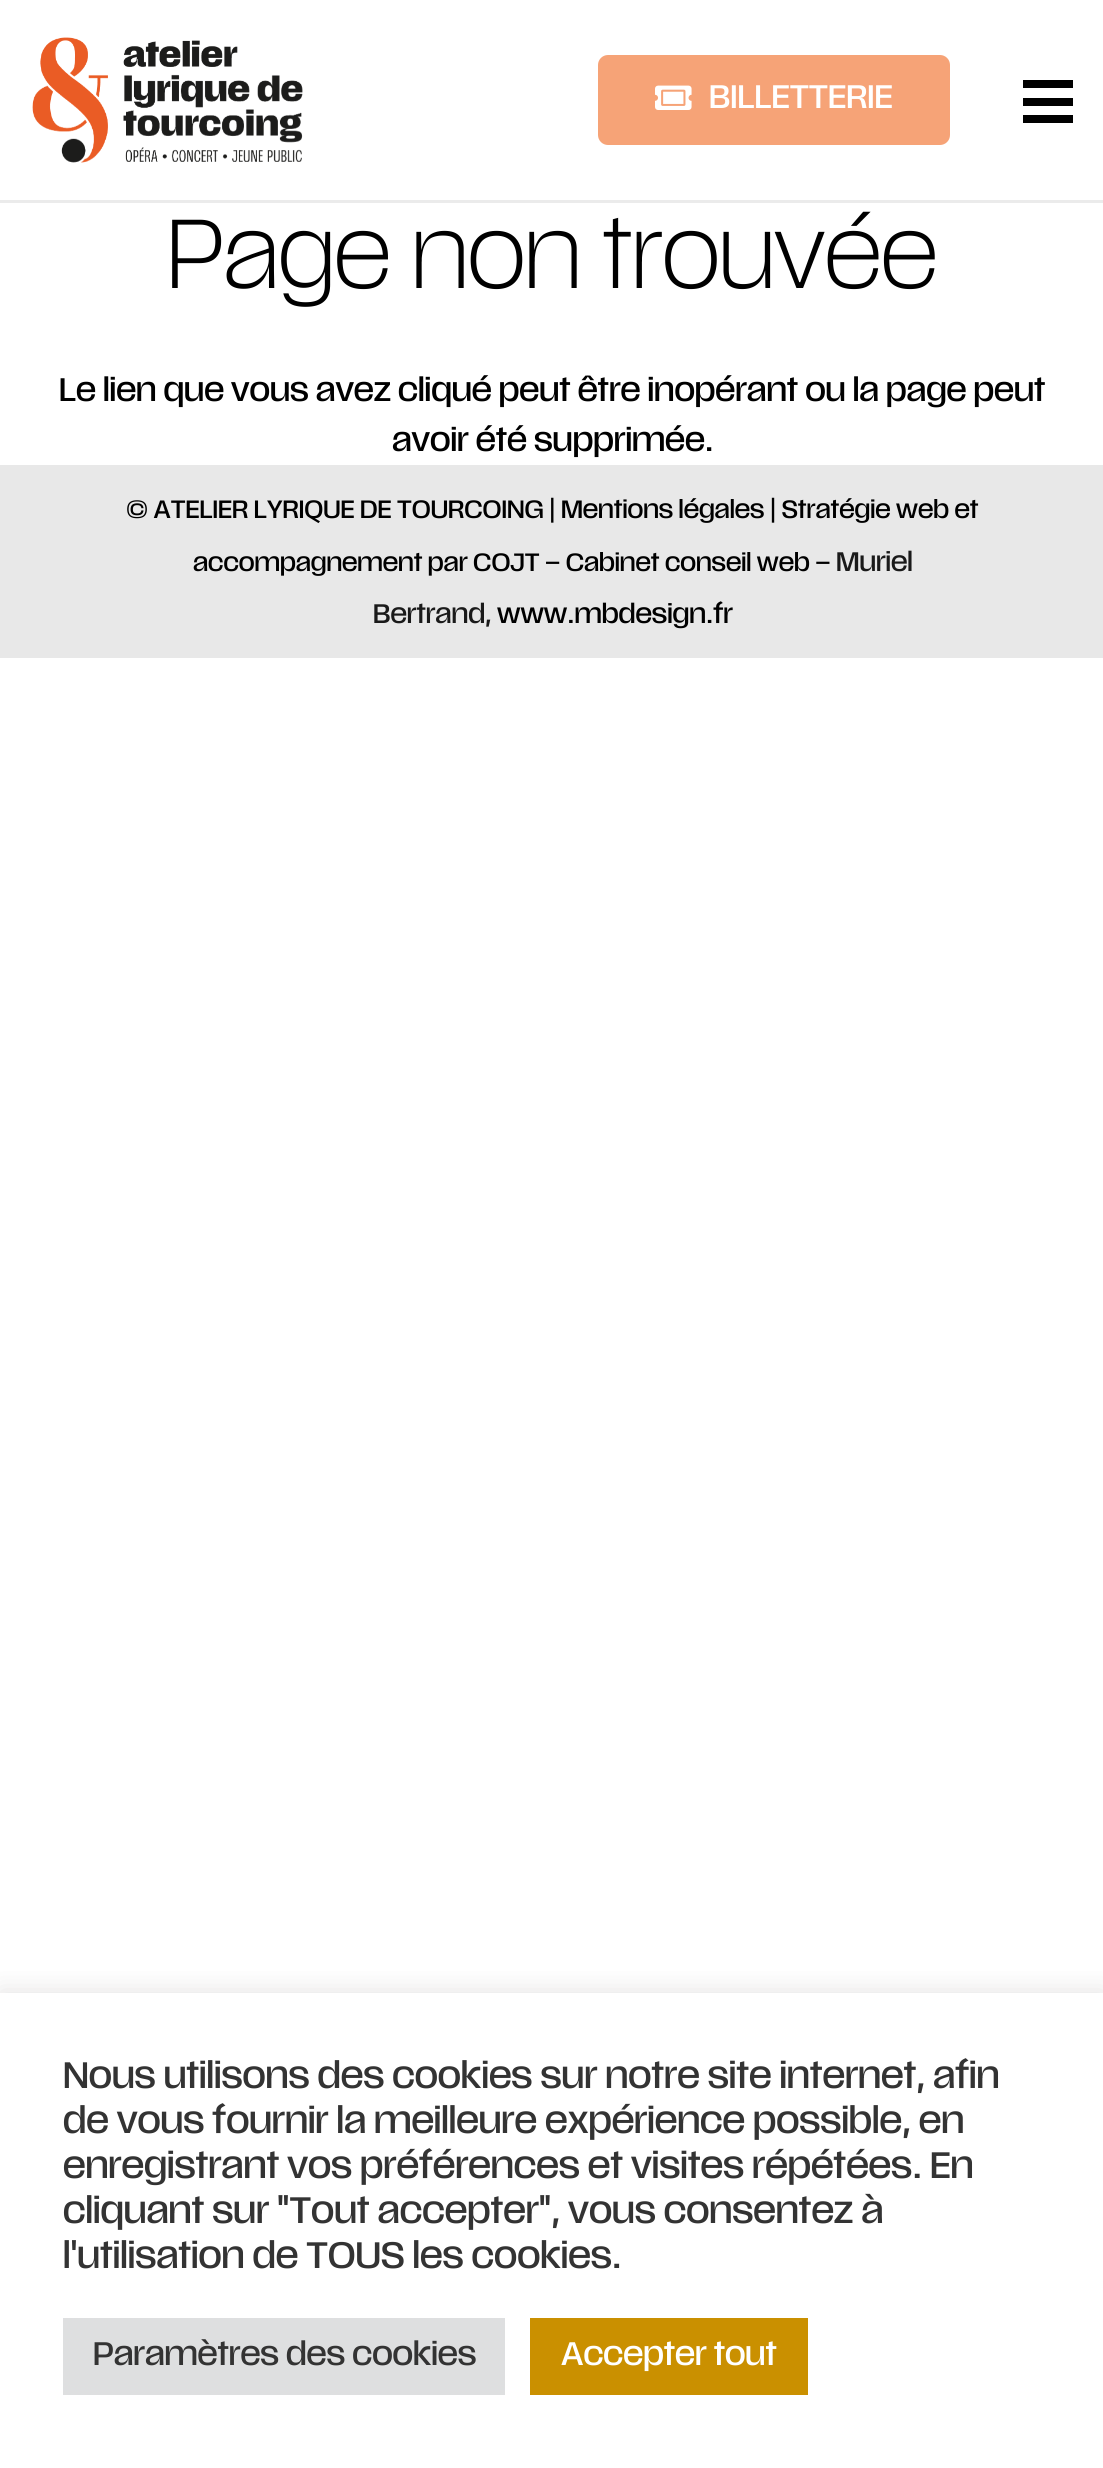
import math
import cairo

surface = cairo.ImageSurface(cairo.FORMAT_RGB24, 1103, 2468)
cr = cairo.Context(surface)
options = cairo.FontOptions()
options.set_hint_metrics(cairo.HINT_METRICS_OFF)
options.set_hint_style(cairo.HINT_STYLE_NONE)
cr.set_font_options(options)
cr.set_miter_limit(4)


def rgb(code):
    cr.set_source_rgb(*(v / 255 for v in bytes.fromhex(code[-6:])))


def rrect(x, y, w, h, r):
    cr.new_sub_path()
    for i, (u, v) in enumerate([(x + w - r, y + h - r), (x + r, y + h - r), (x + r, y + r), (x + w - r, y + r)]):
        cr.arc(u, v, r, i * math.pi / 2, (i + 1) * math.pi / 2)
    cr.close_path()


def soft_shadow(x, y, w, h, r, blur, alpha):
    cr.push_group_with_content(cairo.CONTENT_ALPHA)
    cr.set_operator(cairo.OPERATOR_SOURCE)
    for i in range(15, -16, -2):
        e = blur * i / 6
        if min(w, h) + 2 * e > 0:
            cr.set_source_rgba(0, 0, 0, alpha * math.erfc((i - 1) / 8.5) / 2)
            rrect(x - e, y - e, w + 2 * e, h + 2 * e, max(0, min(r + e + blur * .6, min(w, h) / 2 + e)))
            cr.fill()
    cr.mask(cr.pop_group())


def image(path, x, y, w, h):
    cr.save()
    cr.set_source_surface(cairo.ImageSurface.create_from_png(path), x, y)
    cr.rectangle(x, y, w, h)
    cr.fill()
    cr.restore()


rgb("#ffffff")
cr.paint()
rgb("#ebebeb")
cr.rectangle(0, 200, 1103, 3)
cr.fill()
image("img/1.png", 32, 37, 271, 126)
rgb("#f6a377")
rrect(598, 55, 352, 90, 10)
cr.fill()
image("img/2.png", 655, 85, 37, 25)
for x, y, w, h, color in [
    (1023, 98, 50, 8, "#000000"),
    (1023, 80, 50, 8, "#000000"),
    (1023, 115, 50, 8, "#000000"),
    (0, 465, 1103, 193, "#e8e8e8"),
]:
    rgb(color)
    cr.rectangle(x, y, w, h)
    cr.fill()
cr.save()
cr.rectangle(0, 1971, 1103, 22)
cr.clip()
rgb("#acabab")
soft_shadow(0, 1990, 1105, 478, 0, 12.5, 0.3)
cr.restore()
rgb("#dedfe0")
cr.rectangle(63, 2318, 442, 77)
cr.fill()
rgb("#ca9000")
cr.rectangle(530, 2318, 278, 77)
cr.fill()
cr.select_font_face("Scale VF")
cr.set_font_size(32.5)
rgb("#ffffff")
cr.move_to(709, 108)
cr.show_text("BILLETTERIE")
cr.select_font_face("Scale VF ExtraLight")
cr.set_font_size(97.5)
rgb("#000000")
cr.move_to(167, 288)
cr.show_text("Page non trouvée")
cr.select_font_face("Scale VF")
cr.set_font_size(32.5)
cr.move_to(59, 401)
cr.show_text("Le lien que vous avez cliqué peut être inopérant ou la page peut")
cr.move_to(392, 451)
cr.show_text("avoir été supprimée.")
cr.set_font_size(25)
cr.move_to(126, 518)
cr.show_text("© ATELIER LYRIQUE DE TOURCOING | Mentions légales | Stratégie web et")
cr.move_to(193, 571)
cr.show_text("accompagnement par COJT – Cabinet conseil web –")
cr.set_font_size(26.75)
rgb("#1a1a1a")
cr.move_to(836, 571)
cr.show_text("Muriel")
cr.move_to(373, 623)
cr.show_text("Bertrand,")
rgb("#000000")
cr.move_to(497, 623)
cr.show_text("www.mbdesign.fr")
cr.set_font_size(36.7)
rgb("#333333")
for x, y, s in [
    (63, 2088, "Nous utilisons des cookies sur notre site internet, afin"),
    (63, 2133, "de vous fournir la meilleure expérience possible, en"),
    (63, 2178, "enregistrant vos préférences et visites répétées. En"),
    (63, 2223, "cliquant sur \"Tout accepter\", vous consentez à"),
    (63, 2268, "l'utilisation de TOUS les cookies."),
]:
    cr.move_to(x, y)
    cr.show_text(s)
cr.set_font_size(32.5)
cr.move_to(93, 2365)
cr.show_text("Paramètres des cookies")
rgb("#ffffff")
cr.move_to(561, 2365)
cr.show_text("Accepter tout")
surface.write_to_png("page.png")
